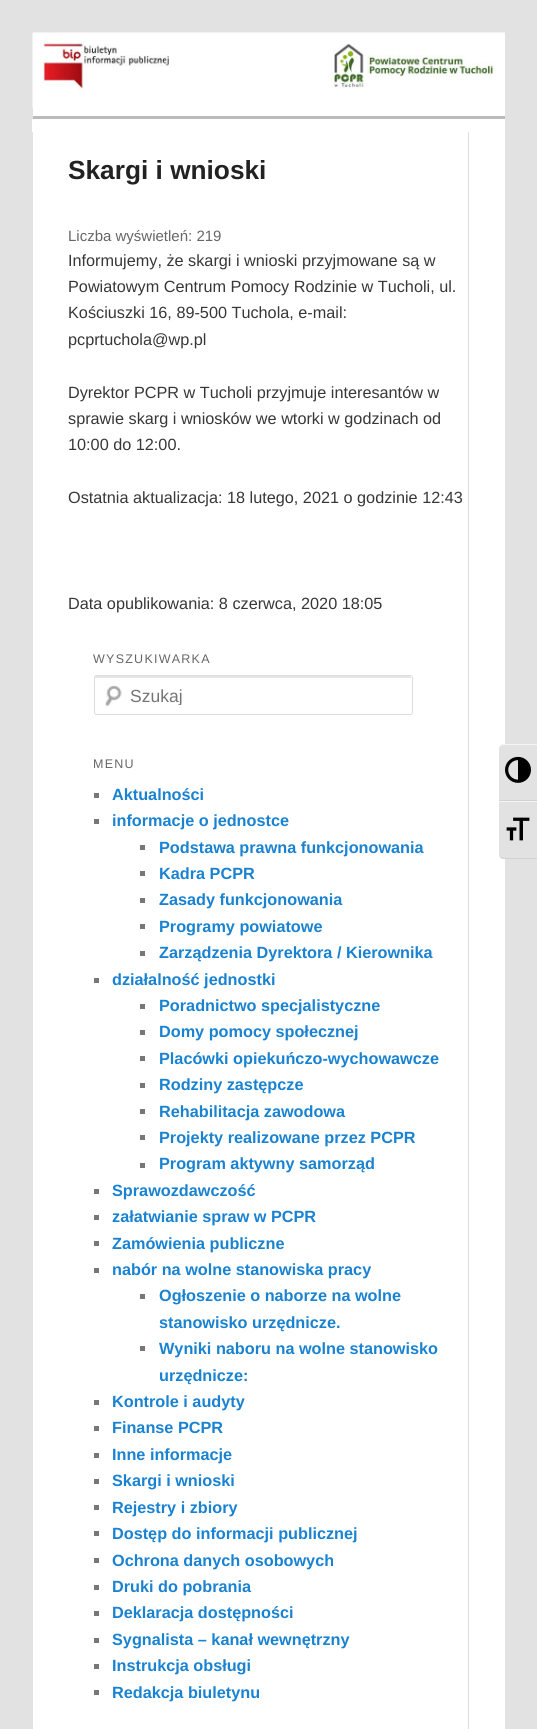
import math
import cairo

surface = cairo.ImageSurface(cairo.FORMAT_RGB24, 537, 1729)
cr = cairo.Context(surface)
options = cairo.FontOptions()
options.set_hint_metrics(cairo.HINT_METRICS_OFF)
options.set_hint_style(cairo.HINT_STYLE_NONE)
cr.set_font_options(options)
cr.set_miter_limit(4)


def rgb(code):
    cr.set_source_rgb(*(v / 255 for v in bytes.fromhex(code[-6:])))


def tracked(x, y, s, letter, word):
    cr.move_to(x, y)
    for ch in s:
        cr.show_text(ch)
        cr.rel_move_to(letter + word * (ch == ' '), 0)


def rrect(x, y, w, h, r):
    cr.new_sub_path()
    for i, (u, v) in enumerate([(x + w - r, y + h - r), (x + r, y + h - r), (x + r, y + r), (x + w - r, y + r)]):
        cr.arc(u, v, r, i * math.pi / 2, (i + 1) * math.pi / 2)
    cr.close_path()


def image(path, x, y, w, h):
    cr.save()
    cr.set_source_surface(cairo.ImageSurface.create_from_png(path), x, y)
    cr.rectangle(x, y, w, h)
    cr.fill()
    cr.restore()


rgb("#e2e2e2")
cr.paint()
rgb("#ffffff")
cr.rectangle(33, 33, 472, 1696)
cr.fill()
image("img/1.png", 32, 32, 237, 76)
image("img/2.png", 269, 32, 236, 57)
for x, y, w, h, color in [
    (468, 131, 1, 1598, "#dddddd"),
    (32, 119, 437, 13, "#ffffff"),
    (33, 116, 472, 3, "#bbbbbb"),
]:
    rgb(color)
    cr.rectangle(x, y, w, h)
    cr.fill()
image("img/3.png", 105, 685, 17, 22)
rgb("#e6e6e6")
cr.new_path()
cr.move_to(96, 676)
cr.curve_to(95, 676, 95, 677, 95, 678)
cr.line_to(410, 678)
cr.line_to(411, 679)
cr.curve_to(411, 678, 411, 676, 410, 676)
cr.close_path()
cr.fill()
rrect(94.5, 675.5, 318, 39, 2)
rgb("#dddddd")
cr.set_line_width(1)
cr.stroke()
for x, y, w, h, color in [
    (94, 793, 5, 5, "#777777"),
    (94, 819, 5, 5, "#777777"),
    (140, 845, 5, 5, "#777777"),
    (140, 871, 5, 5, "#777777"),
    (140, 898, 5, 5, "#777777"),
    (140, 924, 5, 5, "#777777"),
    (140, 951, 5, 5, "#777777"),
    (94, 978, 5, 5, "#777777"),
    (140, 1004, 5, 5, "#777777"),
    (140, 1030, 5, 5, "#777777"),
    (140, 1056, 5, 5, "#777777"),
    (140, 1083, 5, 5, "#777777"),
    (140, 1109, 5, 5, "#777777"),
    (140, 1135, 5, 5, "#777777"),
    (140, 1163, 5, 5, "#777777"),
    (94, 1189, 5, 5, "#777777"),
    (94, 1215, 5, 5, "#777777"),
    (94, 1241, 5, 5, "#777777"),
    (94, 1268, 5, 5, "#777777"),
    (140, 1294, 5, 5, "#777777"),
    (140, 1346, 5, 5, "#777777"),
    (94, 1400, 5, 5, "#777777"),
    (94, 1426, 5, 5, "#777777"),
    (94, 1453, 5, 5, "#777777"),
    (94, 1479, 5, 5, "#777777"),
    (94, 1505, 5, 5, "#777777"),
    (94, 1531, 5, 5, "#777777"),
    (94, 1558, 5, 5, "#777777"),
    (94, 1585, 5, 5, "#777777"),
    (94, 1611, 5, 5, "#777777"),
    (94, 1638, 5, 5, "#777777"),
    (94, 1664, 5, 5, "#777777"),
    (94, 1690, 5, 5, "#777777"),
]:
    rgb(color)
    cr.rectangle(x, y, w, h)
    cr.fill()
rgb("#e2e2e2")
cr.new_path()
cr.move_to(504, 744)
cr.line_to(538, 744)
cr.line_to(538, 801)
cr.line_to(499, 801)
cr.line_to(499, 749)
cr.curve_to(499, 746, 501, 744, 504, 744)
cr.close_path()
cr.fill()
rgb("#f5f5f5")
cr.new_path()
cr.move_to(504, 744)
cr.line_to(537.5, 744)
cr.line_to(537.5, 745)
cr.line_to(504, 745)
cr.curve_to(501, 745, 499, 747, 499, 749)
cr.curve_to(499, 746, 501, 744, 504, 744)
cr.close_path()
cr.fill()
rgb("#d2d2d2")
cr.rectangle(499, 800, 38, 1)
cr.fill()
image("img/4.png", 505, 756, 26, 27)
rgb("#e2e2e2")
cr.new_path()
cr.move_to(499, 801)
cr.line_to(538, 801)
cr.line_to(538, 859)
cr.line_to(504, 859)
cr.curve_to(501, 859, 499, 857, 499, 854)
cr.close_path()
cr.fill()
rgb("#f5f5f5")
cr.rectangle(499, 801, 38, 1)
cr.fill()
rgb("#d2d2d2")
cr.new_path()
cr.move_to(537.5, 859)
cr.line_to(502.5, 859)
cr.curve_to(500.5, 858, 499, 856.5, 499, 854)
cr.curve_to(499, 856, 501, 858, 504, 858)
cr.line_to(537.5, 858)
cr.close_path()
cr.fill()
image("img/5.png", 506, 817, 24, 24)
cr.select_font_face("Liberation Sans", cairo.FONT_SLANT_NORMAL, cairo.FONT_WEIGHT_BOLD)
cr.set_font_size(26.25)
rgb("#222222")
cr.move_to(68, 179)
cr.show_text("Skargi i wnioski")
cr.select_font_face("Liberation Sans")
cr.set_font_size(15)
rgb("#666666")
cr.move_to(68, 241)
cr.show_text("Liczba wyświetleń: 219")
cr.set_font_size(16.25)
rgb("#373737")
for x, y, s in [
    (68, 266, "Informujemy, że skargi i wnioski przyjmowane są w"),
    (68, 292, "Powiatowym Centrum Pomocy Rodzinie w Tucholi, ul."),
    (68, 318, "Kościuszki 16, 89-500 Tuchola, e-mail:"),
    (68, 345, "pcprtuchola@wp.pl"),
    (68, 398, "Dyrektor PCPR w Tucholi przyjmuje interesantów w"),
    (68, 424, "sprawie skarg i wniosków we wtorki w godzinach od"),
    (68, 450, "10:00 do 12:00."),
    (68, 503, "Ostatnia aktualizacja: 18 lutego, 2021 o godzinie 12:43"),
    (68, 609, "Data opublikowania: 8 czerwca, 2020 18:05"),
]:
    cr.move_to(x, y)
    cr.show_text(s)
cr.set_font_size(12.5)
rgb("#666666")
tracked(93, 663, "WYSZUKIWARKA", 1.25, 0)
cr.save()
cr.rectangle(130, 685, 269, 20)
cr.clip()
cr.set_font_size(17.5)
rgb("#757575")
cr.move_to(130, 702)
cr.show_text("Szukaj")
cr.restore()
tracked(93, 768, "MENU", 1.25, 0)
cr.select_font_face("Liberation Sans", cairo.FONT_SLANT_NORMAL, cairo.FONT_WEIGHT_BOLD)
cr.set_font_size(16.25)
rgb("#1982d1")
for x, y, s in [
    (112, 800, "Aktualności"),
    (112, 826, "informacje o jednostce"),
    (159, 853, "Podstawa prawna funkcjonowania"),
    (159, 879, "Kadra PCPR"),
    (159, 905, "Zasady funkcjonowania"),
    (159, 932, "Programy powiatowe"),
    (159, 958, "Zarządzenia Dyrektora / Kierownika"),
    (112, 985, "działalność jednostki"),
    (159, 1011, "Poradnictwo specjalistyczne"),
    (159, 1037, "Domy pomocy społecznej"),
    (159, 1064, "Placówki opiekuńczo-wychowawcze"),
    (159, 1090, "Rodziny zastępcze"),
    (159, 1117, "Rehabilitacja zawodowa"),
    (159, 1143, "Projekty realizowane przez PCPR"),
    (159, 1169, "Program aktywny samorząd"),
    (112, 1196, "Sprawozdawczość"),
    (112, 1222, "załatwianie spraw w PCPR"),
    (112, 1249, "Zamówienia publiczne"),
    (112, 1275, "nabór na wolne stanowiska pracy"),
    (159, 1301, "Ogłoszenie o naborze na wolne"),
    (159, 1328, "stanowisko urzędnicze."),
    (159, 1354, "Wyniki naboru na wolne stanowisko"),
    (159, 1381, "urzędnicze:"),
    (112, 1407, "Kontrole i audyty"),
    (112, 1433, "Finanse PCPR"),
    (112, 1460, "Inne informacje"),
    (112, 1486, "Skargi i wnioski"),
    (112, 1513, "Rejestry i zbiory"),
    (112, 1539, "Dostęp do informacji publicznej"),
    (112, 1566, "Ochrona danych osobowych"),
    (112, 1592, "Druki do pobrania"),
    (112, 1618, "Deklaracja dostępności"),
    (112, 1645, "Sygnalista – kanał wewnętrzny"),
    (112, 1671, "Instrukcja obsługi"),
    (112, 1698, "Redakcja biuletynu"),
]:
    cr.move_to(x, y)
    cr.show_text(s)
surface.write_to_png("page.png")
